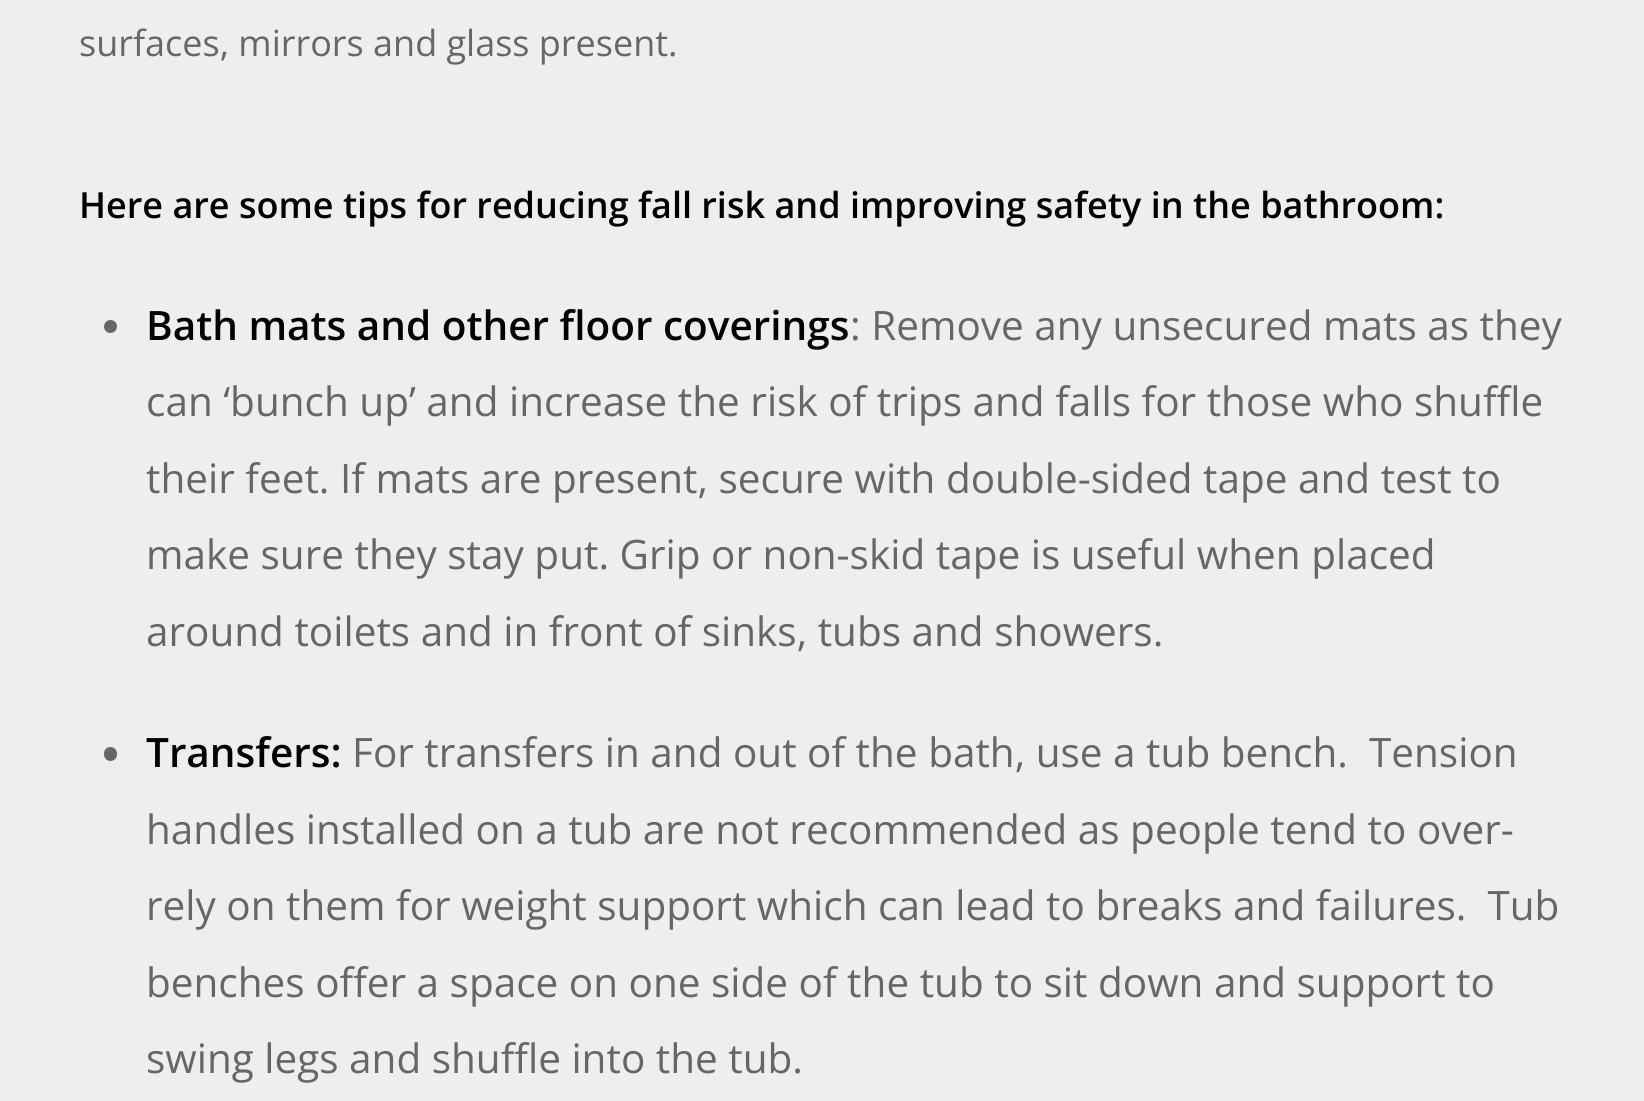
import math
import cairo

surface = cairo.ImageSurface(cairo.FORMAT_RGB24, 1644, 1101)
cr = cairo.Context(surface)
options = cairo.FontOptions()
options.set_hint_metrics(cairo.HINT_METRICS_OFF)
options.set_hint_style(cairo.HINT_STYLE_NONE)
cr.set_font_options(options)
cr.set_miter_limit(4)


def rgb(code):
    cr.set_source_rgb(*(v / 255 for v in bytes.fromhex(code[-6:])))


def rrect(x, y, w, h, r):
    cr.new_sub_path()
    for i, (u, v) in enumerate([(x + w - r, y + h - r), (x + r, y + h - r), (x + r, y + r), (x + w - r, y + r)]):
        cr.arc(u, v, r, i * math.pi / 2, (i + 1) * math.pi / 2)
    cr.close_path()


rgb("#eeeeee")
cr.paint()
rgb("#666666")
cr.arc(110.5, 326.5, 6.5, 0, 2 * math.pi)
cr.fill()
rrect(104, 747, 13, 14, 6.5)
cr.fill()
cr.select_font_face("Open Sans")
cr.set_font_size(36)
cr.move_to(79, 56)
cr.show_text("surfaces, mirrors and glass present.")
cr.select_font_face("Open Sans SemiBold")
rgb("#000000")
cr.move_to(79, 218)
cr.show_text("Here are some tips for reducing fall risk and improving safety in the bathroom:")
cr.set_font_size(40.5)
cr.move_to(146, 340)
cr.show_text("Bath mats and other floor coverings")
cr.select_font_face("Open Sans")
rgb("#666666")
for x, y, s in [
    (850, 340, ": Remove any unsecured mats as they"),
    (146, 416, "can ‘bunch up’ and increase the risk of trips and falls for those who shuffle"),
    (146, 493, "their feet. If mats are present, secure with double-sided tape and test to"),
    (146, 569, "make sure they stay put. Grip or non-skid tape is useful when placed"),
    (146, 646, "around toilets and in front of sinks, tubs and showers."),
]:
    cr.move_to(x, y)
    cr.show_text(s)
cr.select_font_face("Open Sans SemiBold")
rgb("#000000")
cr.move_to(146, 767)
cr.show_text("Transfers:")
cr.select_font_face("Open Sans")
rgb("#666666")
for x, y, s in [
    (352, 767, "For transfers in and out of the bath, use a tub bench.  Tension"),
    (146, 844, "handles installed on a tub are not recommended as people tend to over-"),
    (146, 920, "rely on them for weight support which can lead to breaks and failures.  Tub"),
    (146, 997, "benches offer a space on one side of the tub to sit down and support to"),
    (146, 1073, "swing legs and shuffle into the tub."),
]:
    cr.move_to(x, y)
    cr.show_text(s)
surface.write_to_png("page.png")
